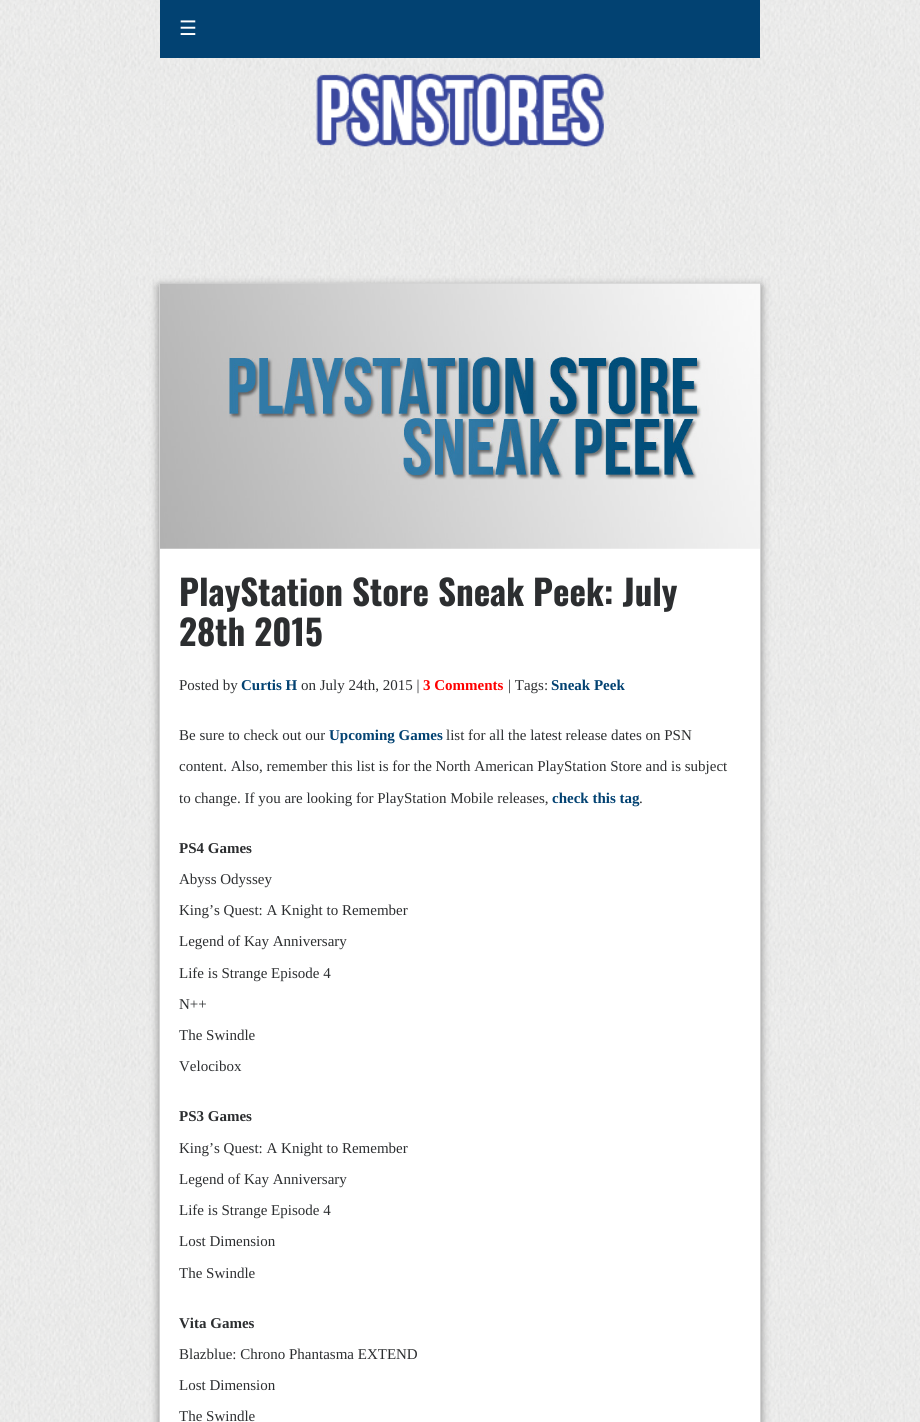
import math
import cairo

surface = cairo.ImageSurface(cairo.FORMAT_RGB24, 920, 1422)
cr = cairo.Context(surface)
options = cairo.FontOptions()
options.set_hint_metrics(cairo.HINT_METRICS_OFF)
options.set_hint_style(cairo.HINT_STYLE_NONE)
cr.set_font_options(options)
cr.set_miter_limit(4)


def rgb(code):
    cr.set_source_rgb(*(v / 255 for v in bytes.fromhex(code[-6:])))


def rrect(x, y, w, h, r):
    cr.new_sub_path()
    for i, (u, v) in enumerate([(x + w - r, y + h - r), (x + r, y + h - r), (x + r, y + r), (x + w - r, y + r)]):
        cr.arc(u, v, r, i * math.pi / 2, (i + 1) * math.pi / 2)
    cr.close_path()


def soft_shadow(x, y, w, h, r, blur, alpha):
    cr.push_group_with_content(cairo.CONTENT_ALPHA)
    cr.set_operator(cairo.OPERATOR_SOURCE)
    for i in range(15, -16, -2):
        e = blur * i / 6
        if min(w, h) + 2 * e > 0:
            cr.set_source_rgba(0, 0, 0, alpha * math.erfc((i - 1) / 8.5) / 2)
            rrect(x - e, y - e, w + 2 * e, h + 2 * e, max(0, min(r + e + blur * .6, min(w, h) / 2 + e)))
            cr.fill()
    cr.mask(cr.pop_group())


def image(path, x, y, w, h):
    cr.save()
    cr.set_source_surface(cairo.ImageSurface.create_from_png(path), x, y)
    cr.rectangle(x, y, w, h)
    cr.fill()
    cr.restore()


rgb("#ffffff")
cr.paint()
image("img/1.png", 0, 0, 920, 1422)
rgb("#024272")
cr.rectangle(160, 0, 600, 58)
cr.fill()
image("img/2.png", 316, 73, 288, 74)
rgb("#888888")
soft_shadow(159, 286, 602, 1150, 0, 4.5, 1)
rgb("#ffffff")
cr.rectangle(160, 548, 600, 874)
cr.fill()
cr.rectangle(159.5, 283.5, 601, 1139)
rgb("#d2d2d2")
cr.set_line_width(1)
cr.stroke()
image("img/3.png", 160, 283, 600, 266)
cr.select_font_face("DejaVu Sans")
cr.set_font_size(20)
rgb("#ffffff")
cr.move_to(179, 35)
cr.show_text("☰")
cr.select_font_face("Oswald", cairo.FONT_SLANT_NORMAL, cairo.FONT_WEIGHT_BOLD)
cr.set_font_size(35)
rgb("#2c2e30")
cr.move_to(179, 606)
cr.show_text("PlayStation Store Sneak Peek: July")
cr.move_to(179, 646)
cr.show_text("28th 2015")
cr.select_font_face("Liberation Serif")
cr.set_font_size(15)
cr.move_to(179, 690)
cr.show_text("Posted by")
cr.select_font_face("Liberation Serif", cairo.FONT_SLANT_NORMAL, cairo.FONT_WEIGHT_BOLD)
rgb("#024272")
cr.move_to(241, 690)
cr.show_text("Curtis H")
cr.select_font_face("Liberation Serif")
rgb("#2c2e30")
cr.move_to(301, 690)
cr.show_text("on July 24th, 2015 |")
cr.select_font_face("Liberation Serif", cairo.FONT_SLANT_NORMAL, cairo.FONT_WEIGHT_BOLD)
rgb("#ff0000")
cr.move_to(423, 690)
cr.show_text("3 Comments")
cr.select_font_face("Liberation Serif")
rgb("#2c2e30")
cr.move_to(508, 690)
cr.show_text("| Tags:")
cr.select_font_face("Liberation Serif", cairo.FONT_SLANT_NORMAL, cairo.FONT_WEIGHT_BOLD)
rgb("#024272")
cr.move_to(551, 690)
cr.show_text("Sneak Peek")
cr.select_font_face("Liberation Serif")
rgb("#2c2e30")
cr.move_to(179, 740)
cr.show_text("Be sure to check out our")
cr.select_font_face("Liberation Serif", cairo.FONT_SLANT_NORMAL, cairo.FONT_WEIGHT_BOLD)
rgb("#024272")
cr.move_to(329, 740)
cr.show_text("Upcoming Games")
cr.select_font_face("Liberation Serif")
rgb("#2c2e30")
for x, y, s in [
    (446, 740, "list for all the latest release dates on PSN"),
    (179, 771, "content. Also, remember this list is for the North American PlayStation Store and is subject"),
    (179, 803, "to change. If you are looking for PlayStation Mobile releases,"),
]:
    cr.move_to(x, y)
    cr.show_text(s)
cr.select_font_face("Liberation Serif", cairo.FONT_SLANT_NORMAL, cairo.FONT_WEIGHT_BOLD)
rgb("#024272")
cr.move_to(552, 803)
cr.show_text("check this tag")
cr.select_font_face("Liberation Serif")
rgb("#2c2e30")
cr.move_to(639, 803)
cr.show_text(".")
cr.select_font_face("Liberation Serif", cairo.FONT_SLANT_NORMAL, cairo.FONT_WEIGHT_BOLD)
cr.move_to(179, 853)
cr.show_text("PS4 Games")
cr.select_font_face("Liberation Serif")
for x, y, s in [
    (179, 884, "Abyss Odyssey"),
    (179, 915, "King’s Quest: A Knight to Remember"),
    (179, 946, "Legend of Kay Anniversary"),
    (179, 978, "Life is Strange Episode 4"),
    (179, 1009, "N++"),
    (179, 1040, "The Swindle"),
    (179, 1071, "Velocibox"),
]:
    cr.move_to(x, y)
    cr.show_text(s)
cr.select_font_face("Liberation Serif", cairo.FONT_SLANT_NORMAL, cairo.FONT_WEIGHT_BOLD)
cr.move_to(179, 1121)
cr.show_text("PS3 Games")
cr.select_font_face("Liberation Serif")
for x, y, s in [
    (179, 1153, "King’s Quest: A Knight to Remember"),
    (179, 1184, "Legend of Kay Anniversary"),
    (179, 1215, "Life is Strange Episode 4"),
    (179, 1246, "Lost Dimension"),
    (179, 1278, "The Swindle"),
]:
    cr.move_to(x, y)
    cr.show_text(s)
cr.select_font_face("Liberation Serif", cairo.FONT_SLANT_NORMAL, cairo.FONT_WEIGHT_BOLD)
cr.move_to(179, 1328)
cr.show_text("Vita Games")
cr.select_font_face("Liberation Serif")
for x, y, s in [
    (179, 1359, "Blazblue: Chrono Phantasma EXTEND"),
    (179, 1390, "Lost Dimension"),
    (179, 1421, "The Swindle"),
]:
    cr.move_to(x, y)
    cr.show_text(s)
surface.write_to_png("page.png")
